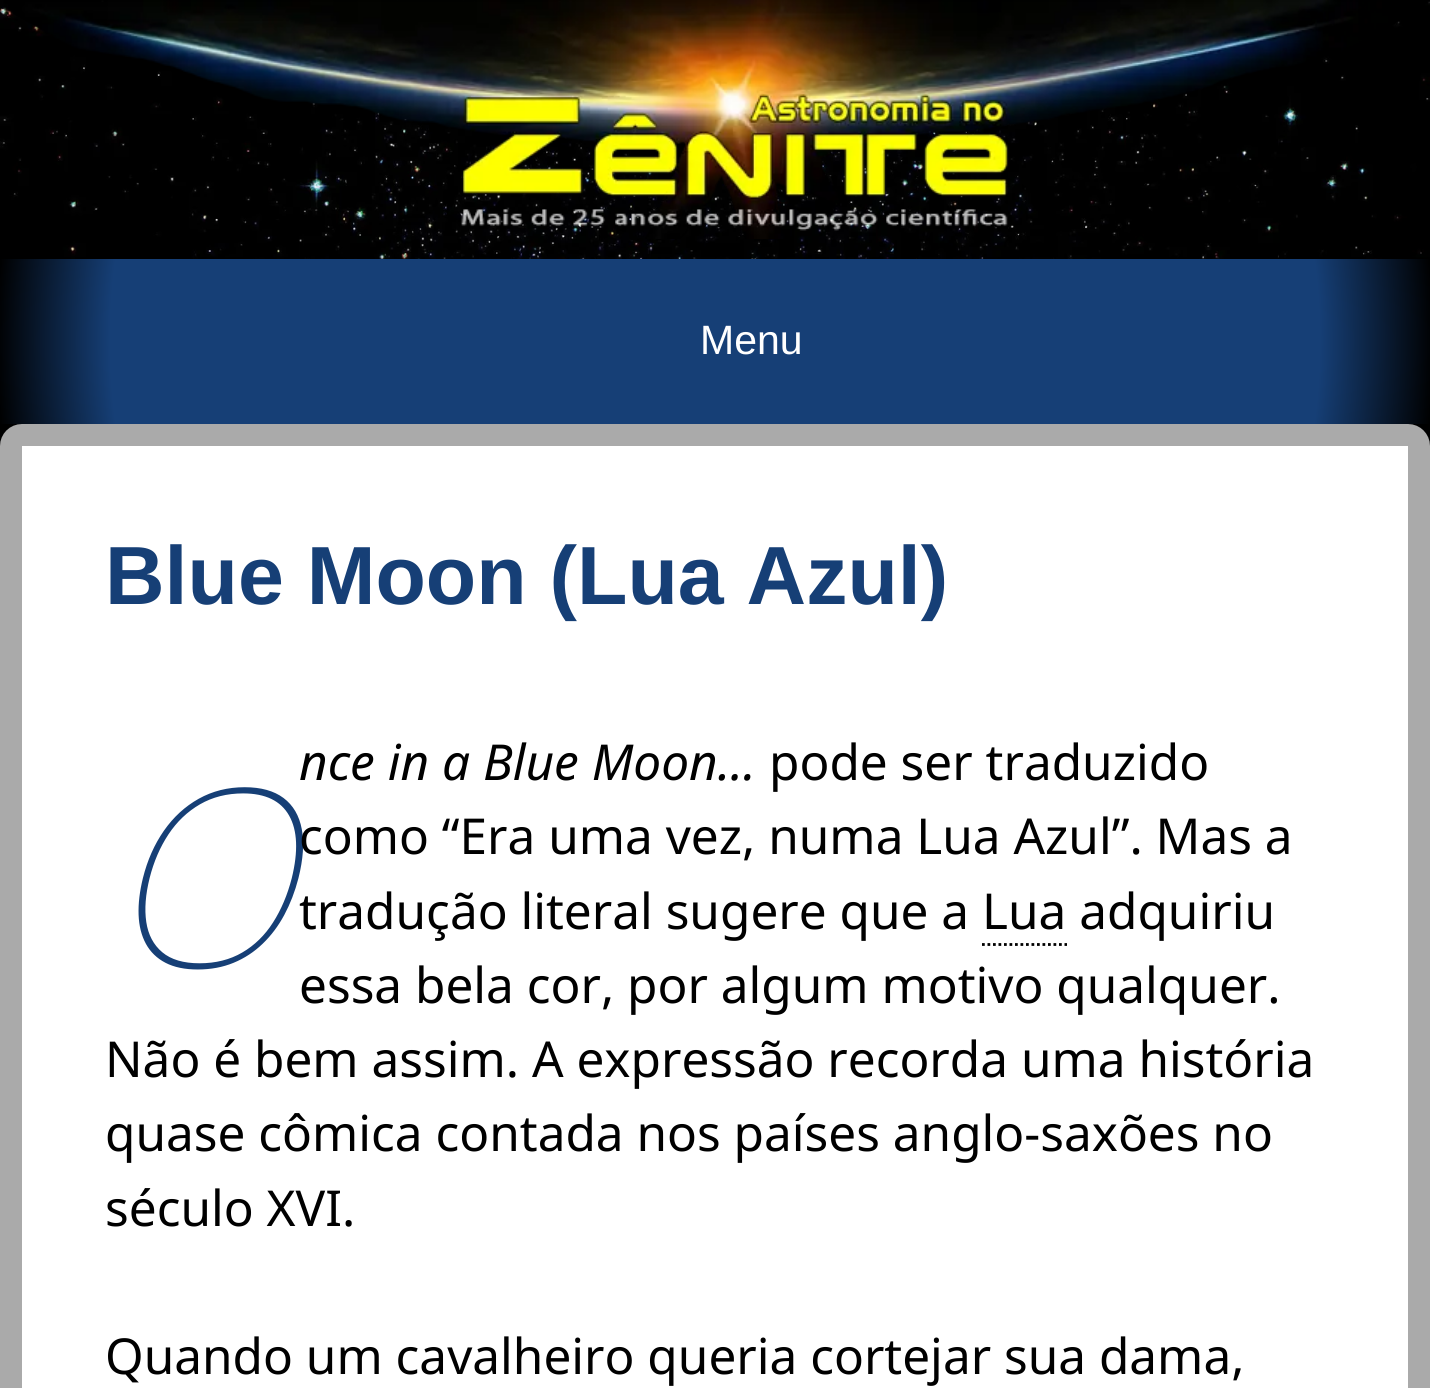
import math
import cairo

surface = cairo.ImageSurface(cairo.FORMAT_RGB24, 1430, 1388)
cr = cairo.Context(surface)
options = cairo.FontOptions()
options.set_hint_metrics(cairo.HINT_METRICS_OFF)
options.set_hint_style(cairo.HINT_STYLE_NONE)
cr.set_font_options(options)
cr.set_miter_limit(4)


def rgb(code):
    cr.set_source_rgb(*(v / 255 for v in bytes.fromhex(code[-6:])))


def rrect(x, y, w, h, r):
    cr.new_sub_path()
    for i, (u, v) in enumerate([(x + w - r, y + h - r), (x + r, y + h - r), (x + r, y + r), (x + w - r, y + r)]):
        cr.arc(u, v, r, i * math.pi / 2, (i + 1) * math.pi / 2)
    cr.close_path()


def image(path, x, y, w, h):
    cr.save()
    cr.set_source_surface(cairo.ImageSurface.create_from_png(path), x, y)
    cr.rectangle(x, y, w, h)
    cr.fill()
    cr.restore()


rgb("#ffffff")
cr.paint()
image("img/1.png", 0, 0, 1430, 446)
image("img/2.png", 8, 0, 1422, 239)
gradient = cairo.RadialGradient(715, 341, 0, 715, 341, 720)
gradient.add_color_stop_rgba(0, 0.086, 0.247, 0.463, 1)
gradient.add_color_stop_rgba(0.84, 0.086, 0.247, 0.463, 1)
gradient.add_color_stop_rgba(1, 0, 0, 0, 1)
cr.set_source(gradient)
cr.rectangle(0, 259, 1430, 165)
cr.fill()
rrect(11, 435, 1408, 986, 11)
rgb("#aaaaaa")
cr.set_line_width(22)
cr.stroke()
cr.new_path()
cr.move_to(982, 944.5)
cr.line_to(1067, 944.5)
rgb("#000000")
cr.set_line_width(2.8)
cr.set_dash([2.75, 2.75])
cr.stroke()
cr.select_font_face("Liberation Sans")
cr.set_font_size(41)
rgb("#ffffff")
cr.move_to(700, 354)
cr.show_text("Menu")
cr.select_font_face("Liberation Sans", cairo.FONT_SLANT_NORMAL, cairo.FONT_WEIGHT_BOLD)
cr.set_font_size(82.5)
rgb("#163f76")
cr.move_to(105, 604)
cr.show_text("Blue Moon (Lua Azul)")
cr.select_font_face("Noto Sans", cairo.FONT_SLANT_ITALIC)
cr.set_font_size(49.5)
rgb("#000000")
cr.move_to(299, 780)
cr.show_text("nce in a Blue Moon…")
cr.select_font_face("Noto Sans")
cr.move_to(769, 780)
cr.show_text("pode ser traduzido")
cr.select_font_face("Noto Sans Thin", cairo.FONT_SLANT_ITALIC)
cr.set_font_size(248)
rgb("#163f76")
cr.move_to(105, 967)
cr.show_text("O")
cr.select_font_face("Noto Sans")
cr.set_font_size(49.5)
rgb("#000000")
for x, y, s in [
    (299, 854, "como “Era uma vez, numa Lua Azul”. Mas a"),
    (299, 929, "tradução literal sugere que a Lua adquiriu"),
    (299, 1003, "essa bela cor, por algum motivo qualquer."),
    (105, 1077, "Não é bem assim. A expressão recorda uma história"),
    (105, 1151, "quase cômica contada nos países anglo-saxões no"),
    (105, 1226, "século XVI."),
    (105, 1374, "Quando um cavalheiro queria cortejar sua dama,"),
]:
    cr.move_to(x, y)
    cr.show_text(s)
surface.write_to_png("page.png")
